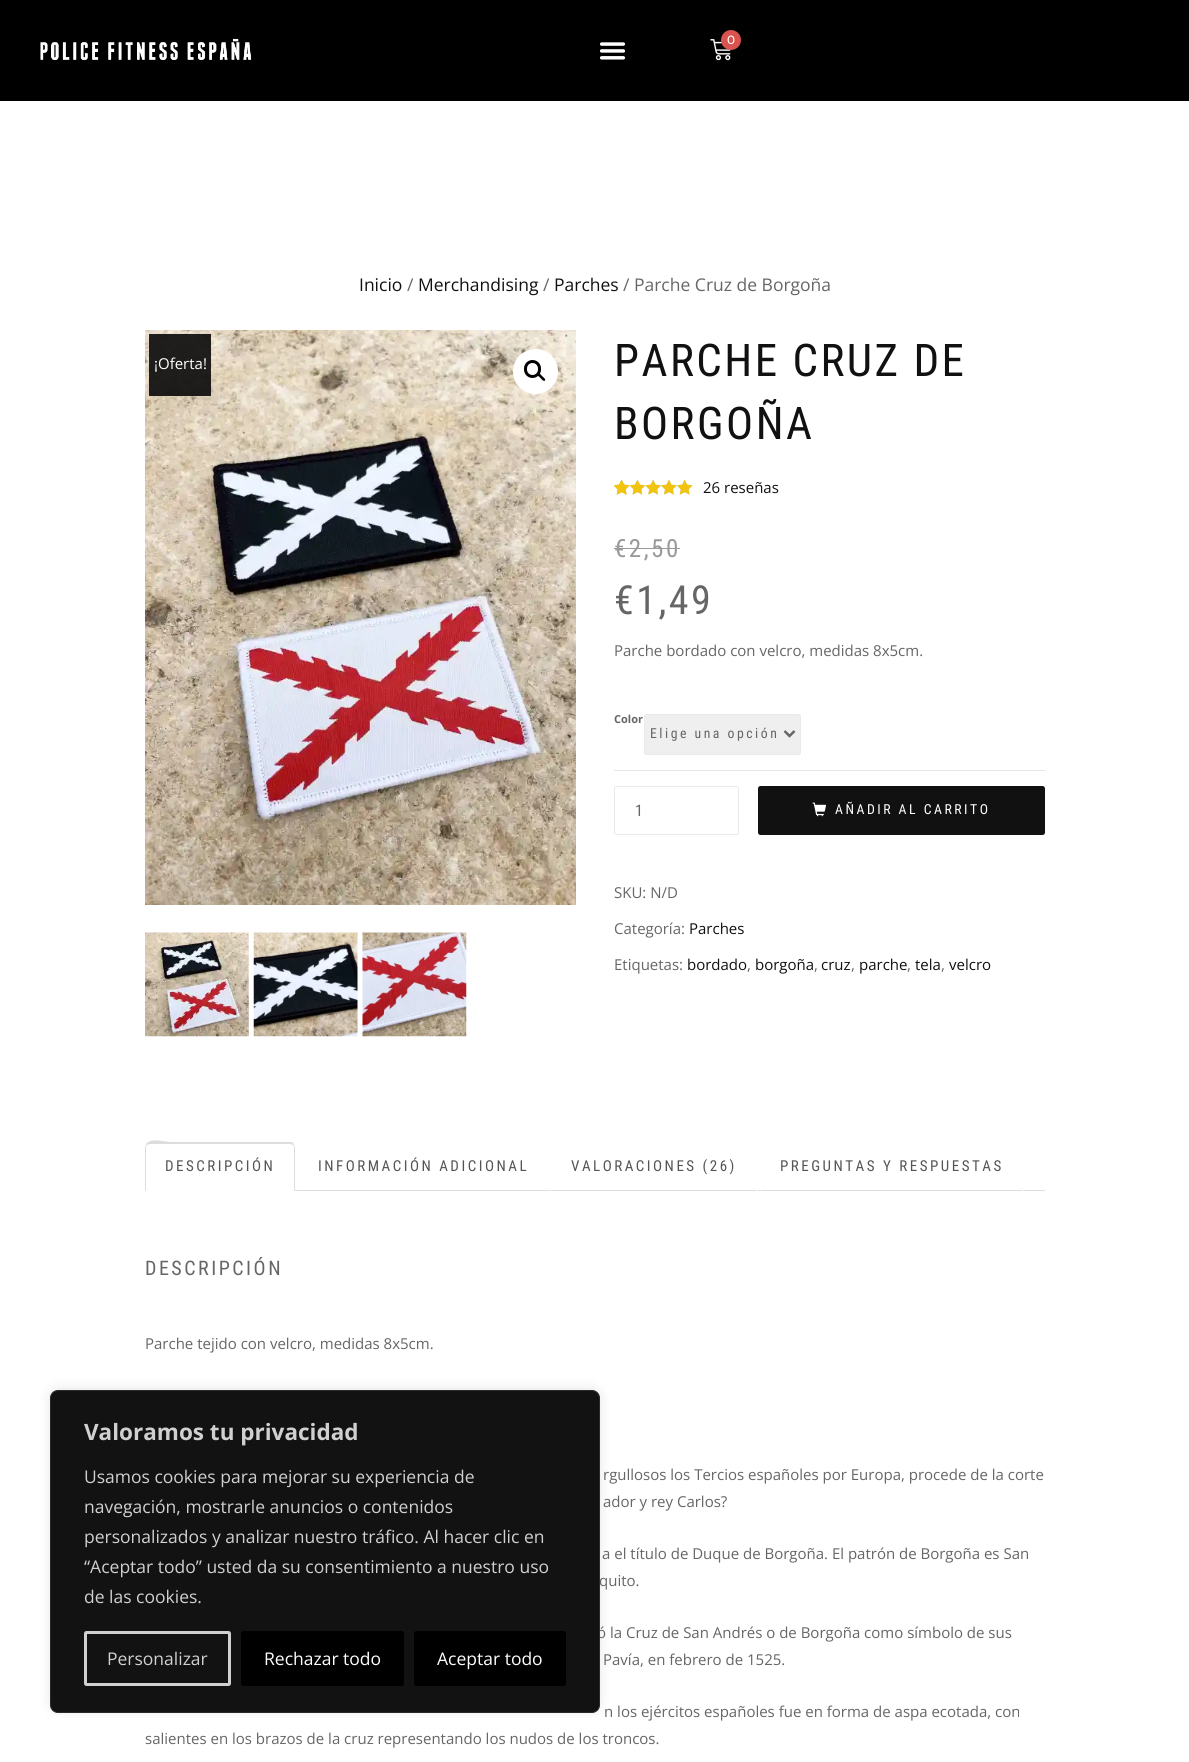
import math
import cairo

surface = cairo.ImageSurface(cairo.FORMAT_RGB24, 1189, 1762)
cr = cairo.Context(surface)
options = cairo.FontOptions()
options.set_hint_metrics(cairo.HINT_METRICS_OFF)
options.set_hint_style(cairo.HINT_STYLE_NONE)
cr.set_font_options(options)
cr.set_miter_limit(4)


def rgb(code):
    cr.set_source_rgb(*(v / 255 for v in bytes.fromhex(code[-6:])))


def tracked(x, y, s, letter, word):
    cr.move_to(x, y)
    for ch in s:
        cr.show_text(ch)
        cr.rel_move_to(letter + word * (ch == ' '), 0)


def rrect(x, y, w, h, r):
    cr.new_sub_path()
    for i, (u, v) in enumerate([(x + w - r, y + h - r), (x + r, y + h - r), (x + r, y + r), (x + w - r, y + r)]):
        cr.arc(u, v, r, i * math.pi / 2, (i + 1) * math.pi / 2)
    cr.close_path()


def soft_shadow(x, y, w, h, r, blur, alpha):
    cr.push_group_with_content(cairo.CONTENT_ALPHA)
    cr.set_operator(cairo.OPERATOR_SOURCE)
    for i in range(15, -16, -2):
        e = blur * i / 6
        if min(w, h) + 2 * e > 0:
            cr.set_source_rgba(0, 0, 0, alpha * math.erfc((i - 1) / 8.5) / 2)
            rrect(x - e, y - e, w + 2 * e, h + 2 * e, max(0, min(r + e + blur * .6, min(w, h) / 2 + e)))
            cr.fill()
    cr.mask(cr.pop_group())


def image(path, x, y, w, h):
    cr.save()
    cr.set_source_surface(cairo.ImageSurface.create_from_png(path), x, y)
    cr.rectangle(x, y, w, h)
    cr.fill()
    cr.restore()


rgb("#ffffff")
cr.paint()
rgb("#000000")
cr.rectangle(0, 0, 1189, 101)
cr.fill()
image("img/1.png", 40, 38, 212, 22)
image("img/2.png", 599, 42, 27, 18)
image("img/3.png", 710, 39, 22, 22)
rgb("#d9534f")
cr.arc(731, 40, 10, 0, 2 * math.pi)
cr.fill()
image("img/4.png", 145, 330, 431, 575)
rgb("#ffffff")
cr.arc(535.5, 371.5, 22.5, 0, 2 * math.pi)
cr.fill()
rrect(525.5, 361.5, 14, 15, 7)
rgb("#000000")
cr.set_line_width(3)
cr.stroke()
cr.new_path()
cr.move_to(537.5, 373.5)
cr.curve_to(539, 372, 541.5, 375.5, 542, 376)
cr.curve_to(543, 377, 546, 379, 545, 380.5)
cr.curve_to(543.5, 382, 541, 378.5, 540.5, 378)
cr.curve_to(539.5, 377, 536.5, 375, 537.5, 373.5)
cr.close_path()
cr.fill()
image("img/5.png", 145, 932, 104, 105)
image("img/6.png", 253, 932, 105, 105)
image("img/7.png", 362, 932, 105, 105)
image("img/8.png", 614, 480, 79, 15)
image("img/9.png", 614, 480, 79, 15)
image("img/10.png", 614, 480, 15, 15)
rgb("#999999")
cr.rectangle(614, 548, 66, 1)
cr.fill()
rgb("#efefef")
rrect(644.5, 714.5, 156, 40, 2)
cr.fill_preserve()
rgb("#eaeaea")
cr.set_line_width(1)
cr.stroke()
cr.new_path()
cr.move_to(784.5, 731)
cr.line_to(789.5, 736)
cr.line_to(794.5, 731)
rgb("#666666")
cr.set_line_width(2.5)
cr.stroke()
rgb("#e6e6e6")
cr.rectangle(614, 770, 431, 1)
cr.fill()
rrect(614.5, 786.5, 124, 48, 2)
rgb("#eaeaea")
cr.set_line_width(1)
cr.stroke()
rgb("#111111")
rrect(758, 786, 287, 49, 2.5)
cr.fill()
image("img/11.png", 812, 802, 14, 15)
cr.set_source_rgba(0.039, 0.039, 0.039, 0.9)
cr.rectangle(149, 334, 62, 62)
cr.fill()
rgb("#dddddd")
cr.rectangle(295, 1190, 750, 1)
cr.fill()
cr.new_path()
cr.move_to(150, 1144)
cr.line_to(147, 1145)
cr.line_to(146, 1144)
cr.curve_to(152, 1137, 163, 1142, 172, 1142)
cr.line_to(292, 1142)
cr.line_to(294, 1144)
cr.line_to(293, 1145)
cr.line_to(290, 1144)
cr.close_path()
cr.fill()
cr.new_path()
cr.move_to(295, 1191)
cr.line_to(295, 1148)
cr.curve_to(295, 1146, 294, 1145, 294, 1144)
cr.line_to(293, 1145)
cr.curve_to(293, 1145, 294, 1146, 294, 1148)
cr.line_to(294, 1190)
cr.close_path()
cr.fill()
cr.new_path()
cr.move_to(145, 1148)
cr.line_to(145, 1191)
cr.line_to(146, 1190)
cr.line_to(146, 1148)
cr.curve_to(146, 1146, 147, 1145, 147, 1145)
cr.line_to(146, 1144)
cr.curve_to(146, 1145, 145, 1146, 145, 1148)
cr.close_path()
cr.fill()
rgb("#ffffff")
cr.new_path()
cr.move_to(549, 1191)
cr.line_to(548, 1190)
cr.line_to(548, 1148)
cr.curve_to(548, 1146, 547, 1145, 547, 1145)
cr.line_to(548, 1144)
cr.line_to(549, 1146)
cr.close_path()
cr.fill()
cr.new_path()
cr.move_to(298, 1191)
cr.line_to(298, 1148)
cr.curve_to(298, 1147, 298, 1145, 299, 1144)
cr.line_to(300, 1145)
cr.curve_to(298, 1147, 299, 1184, 299, 1190)
cr.close_path()
cr.fill()
cr.new_path()
cr.move_to(758, 1191)
cr.line_to(756, 1190)
cr.curve_to(756, 1184, 757, 1147, 755, 1145)
cr.line_to(756, 1144)
cr.line_to(758, 1146)
cr.close_path()
cr.fill()
cr.new_path()
cr.move_to(551, 1146)
cr.line_to(552, 1144)
cr.line_to(553, 1145)
cr.curve_to(553, 1145, 552, 1146, 552, 1148)
cr.line_to(552, 1190)
cr.line_to(551, 1191)
cr.close_path()
cr.fill()
cr.new_path()
cr.move_to(1024, 1191)
cr.line_to(1022, 1190)
cr.curve_to(1022, 1184, 1023, 1147, 1021, 1145)
cr.line_to(1023, 1144)
cr.line_to(1024, 1146)
cr.close_path()
cr.fill()
cr.new_path()
cr.move_to(760, 1148)
cr.line_to(760, 1191)
cr.line_to(761, 1190)
cr.line_to(761, 1148)
cr.curve_to(761, 1146, 762, 1145, 762, 1145)
cr.line_to(761, 1144)
cr.curve_to(760, 1145, 760, 1146, 760, 1148)
cr.close_path()
cr.fill()
rgb("#acabab")
soft_shadow(50, 1389, 550, 322, 8, 6, 0.3)
cr.select_font_face("Montserrat Medium")
cr.set_font_size(12)
rgb("#ffffff")
cr.move_to(727, 44)
cr.show_text("0")
cr.select_font_face("Open Sans")
cr.set_font_size(17.5)
rgb("#111111")
cr.move_to(359, 291)
cr.show_text("Inicio")
rgb("#666666")
cr.move_to(407, 291)
cr.show_text("/")
rgb("#111111")
cr.move_to(418, 291)
cr.show_text("Merchandising")
rgb("#666666")
cr.move_to(543, 291)
cr.show_text("/")
rgb("#111111")
cr.move_to(554, 291)
cr.show_text("Parches")
rgb("#666666")
cr.move_to(623, 291)
cr.show_text("/ Parche Cruz de Borgoña")
cr.select_font_face("Roboto Condensed")
cr.set_font_size(45)
rgb("#111111")
tracked(614, 376, "PARCHE CRUZ DE", 2.5, 0)
tracked(614, 439, "BORGOÑA", 2.5, 0)
cr.select_font_face("Open Sans")
cr.set_font_size(15)
cr.move_to(703, 493)
cr.show_text("26 reseñas")
cr.select_font_face("Roboto Condensed")
cr.set_font_size(25)
rgb("#999999")
tracked(614, 557, "€2,50", 2.5, 0)
cr.set_font_size(40)
rgb("#666666")
tracked(614, 614, "€1,49", 2.5, 0)
cr.select_font_face("Open Sans")
cr.set_font_size(15)
cr.move_to(614, 656)
cr.show_text("Parche bordado con velcro, medidas 8x5cm.")
cr.select_font_face("Open Sans", cairo.FONT_SLANT_NORMAL, cairo.FONT_WEIGHT_BOLD)
cr.set_font_size(11)
cr.move_to(614, 723)
cr.show_text("Color")
cr.select_font_face("Roboto Condensed")
cr.set_font_size(13.75)
tracked(650, 738, "Elige una opción", 2.5, 0)
cr.set_font_size(16)
tracked(635, 816, "1", 2.5, 0)
cr.set_font_size(13.75)
rgb("#ffffff")
tracked(835, 814, "AÑADIR AL CARRITO", 2.5, 0)
cr.select_font_face("Open Sans")
cr.set_font_size(15)
rgb("#666666")
cr.move_to(614, 898)
cr.show_text("SKU: N/D")
cr.move_to(614, 934)
cr.show_text("Categoría:")
rgb("#111111")
cr.move_to(689, 934)
cr.show_text("Parches")
rgb("#666666")
cr.move_to(614, 970)
cr.show_text("Etiquetas:")
rgb("#111111")
cr.move_to(687, 970)
cr.show_text("bordado")
rgb("#666666")
cr.move_to(747, 970)
cr.show_text(",")
rgb("#111111")
cr.move_to(755, 970)
cr.show_text("borgoña")
rgb("#666666")
cr.move_to(814, 970)
cr.show_text(",")
rgb("#111111")
cr.move_to(821, 970)
cr.show_text("cruz")
rgb("#666666")
cr.move_to(851, 970)
cr.show_text(",")
rgb("#111111")
cr.move_to(859, 970)
cr.show_text("parche")
rgb("#666666")
cr.move_to(907, 970)
cr.show_text(",")
rgb("#111111")
cr.move_to(915, 970)
cr.show_text("tela")
rgb("#666666")
cr.move_to(941, 970)
cr.show_text(",")
rgb("#111111")
cr.move_to(949, 970)
cr.show_text("velcro")
rgb("#ffffff")
cr.move_to(154, 369)
cr.show_text("¡Oferta!")
cr.select_font_face("Roboto Condensed")
rgb("#555555")
for x, y, s in [
    (165, 1171, "DESCRIPCIÓN"),
    (318, 1171, "INFORMACIÓN ADICIONAL"),
    (571, 1171, "VALORACIONES (26)"),
    (780, 1171, "PREGUNTAS Y RESPUESTAS"),
]:
    tracked(x, y, s, 2.5, 0)
cr.set_font_size(20)
rgb("#666666")
tracked(145, 1275, "DESCRIPCIÓN", 2.5, 0)
cr.select_font_face("Open Sans")
cr.set_font_size(15)
for x, y, s in [
    (145, 1349, "Parche tejido con velcro, medidas 8x5cm."),
    (603, 1480, "rgullosos los Tercios españoles por Europa, procede de la corte"),
    (603, 1507, "ador y rey Carlos?"),
    (602, 1559, "a el título de Duque de Borgoña. El patrón de Borgoña es San"),
    (599, 1586, "quito."),
    (597, 1638, "ó la Cruz de San Andrés o de Borgoña como símbolo de sus"),
    (603, 1665, "Pavía, en febrero de 1525."),
    (604, 1717, "n los ejércitos españoles fue en forma de aspa ecotada, con"),
    (145, 1744, "salientes en los brazos de la cruz representando los nudos de los troncos."),
]:
    cr.move_to(x, y)
    cr.show_text(s)
rgb("#121212")
rrect(50.5, 1390.5, 549, 322, 7.5)
cr.fill_preserve()
rgb("#2a2a2a")
cr.stroke()
cr.select_font_face("Open Sans", cairo.FONT_SLANT_NORMAL, cairo.FONT_WEIGHT_BOLD)
cr.set_font_size(22.5)
rgb("#d0d0d0")
cr.move_to(84, 1440)
cr.show_text("Valoramos tu privacidad")
cr.select_font_face("Open Sans")
cr.set_font_size(17.5)
for x, y, s in [
    (84, 1483, "Usamos cookies para mejorar su experiencia de"),
    (84, 1513, "navegación, mostrarle anuncios o contenidos"),
    (84, 1543, "personalizados y analizar nuestro tráfico. Al hacer clic en"),
    (84, 1573, "“Aceptar todo” usted da su consentimiento a nuestro uso"),
    (84, 1603, "de las cookies."),
]:
    cr.move_to(x, y)
    cr.show_text(s)
rrect(85.5, 1632.5, 144, 52, 1)
cr.set_line_width(3)
cr.stroke()
cr.move_to(107, 1665)
cr.show_text("Personalizar")
rgb("#000000")
rrect(242.5, 1632.5, 160, 52, 1)
cr.fill_preserve()
cr.stroke()
rgb("#ffffff")
cr.move_to(264, 1665)
cr.show_text("Rechazar todo")
rgb("#000000")
rrect(415.5, 1632.5, 149, 52, 1)
cr.fill_preserve()
cr.stroke()
rgb("#ffffff")
cr.move_to(437, 1665)
cr.show_text("Aceptar todo")
surface.write_to_png("page.png")
